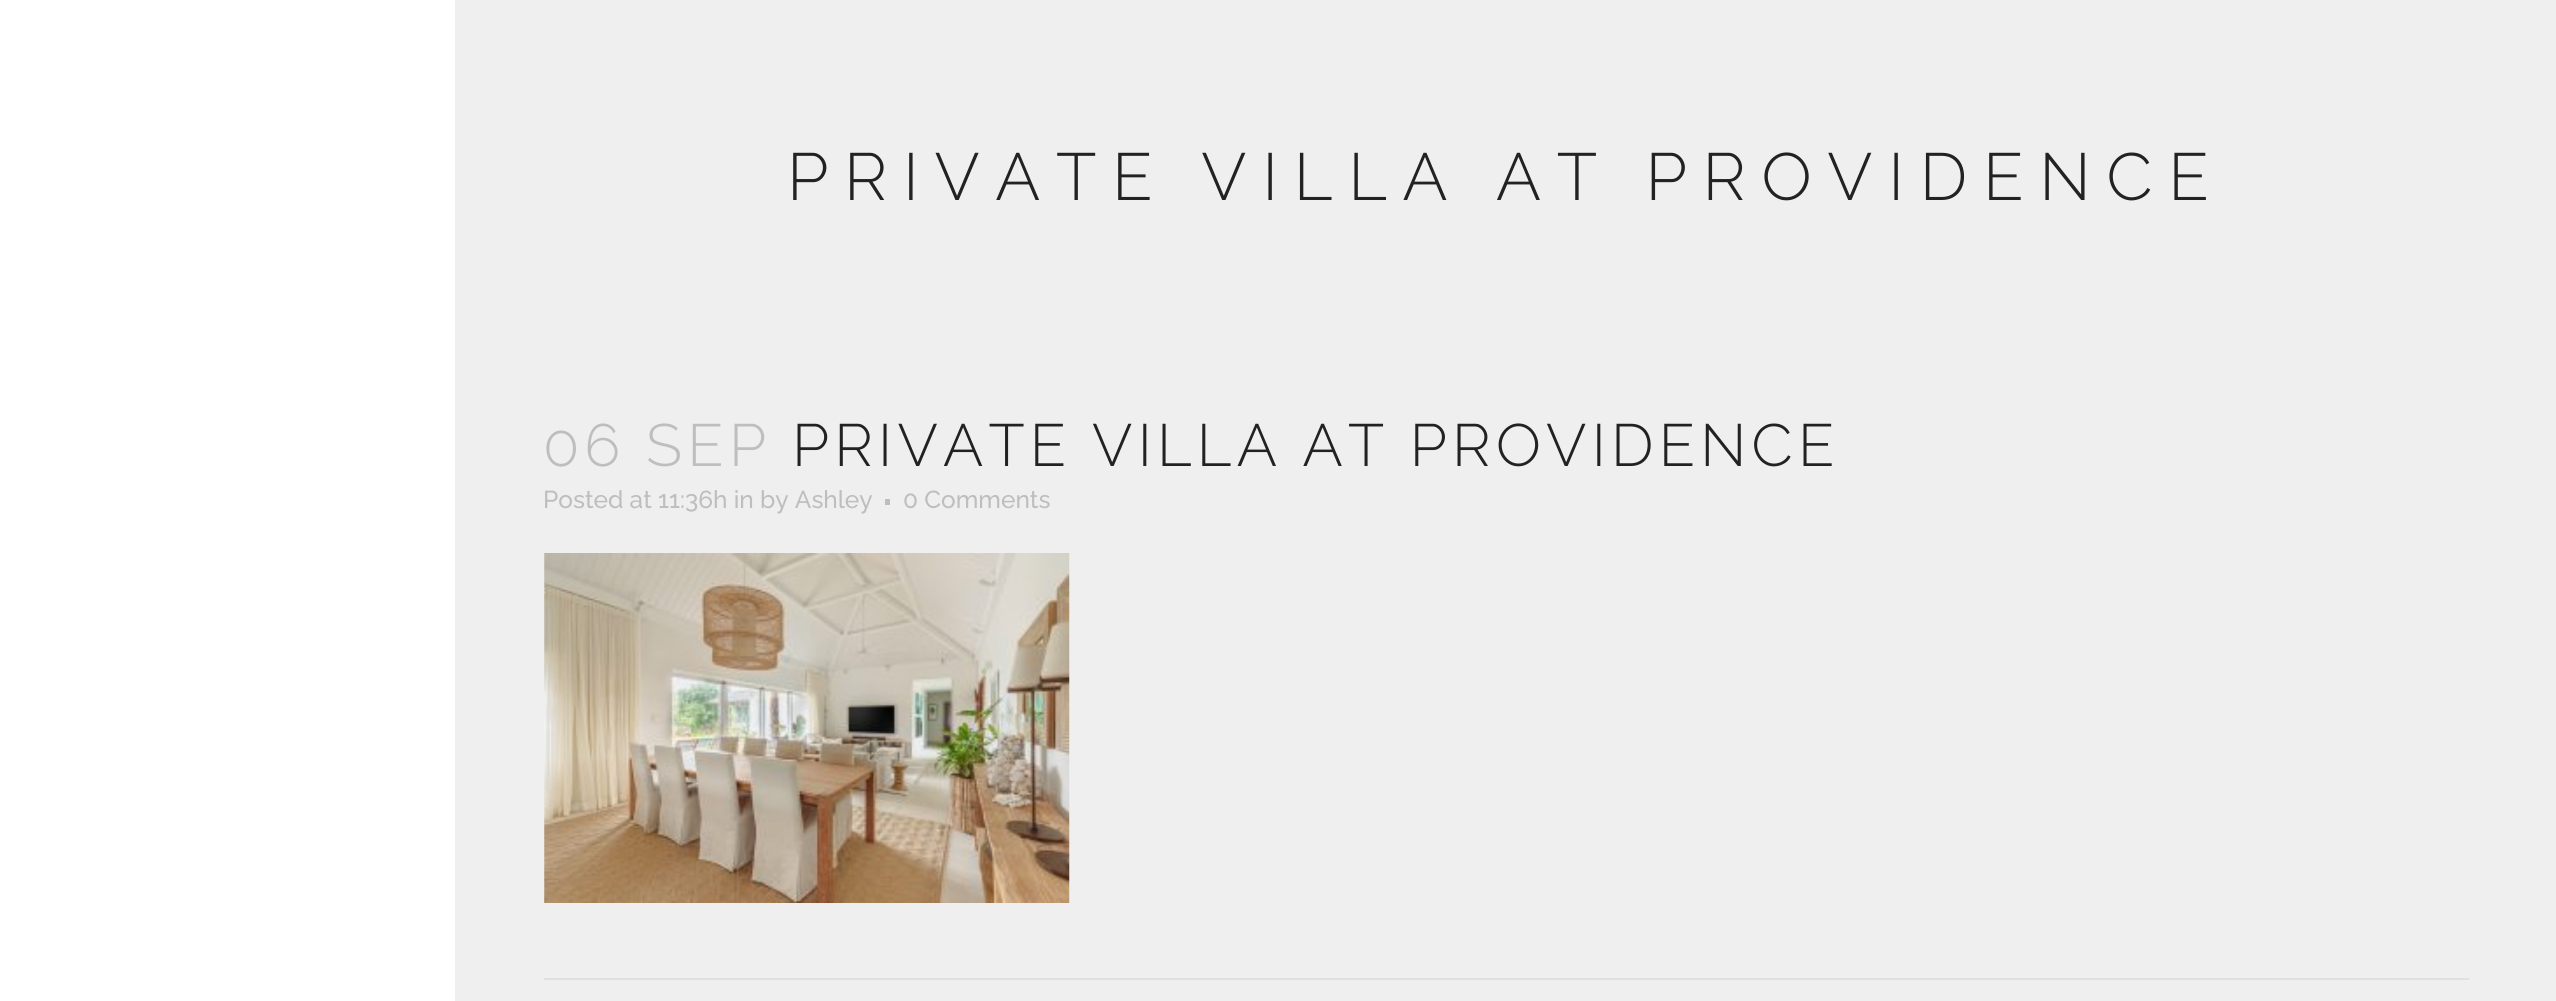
import math
import cairo

surface = cairo.ImageSurface(cairo.FORMAT_RGB24, 2556, 1001)
cr = cairo.Context(surface)
options = cairo.FontOptions()
options.set_hint_metrics(cairo.HINT_METRICS_OFF)
options.set_hint_style(cairo.HINT_STYLE_NONE)
cr.set_font_options(options)
cr.set_miter_limit(4)


def rgb(code):
    cr.set_source_rgb(*(v / 255 for v in bytes.fromhex(code[-6:])))


def tracked(x, y, s, letter, word):
    cr.move_to(x, y)
    for ch in s:
        cr.show_text(ch)
        cr.rel_move_to(letter + word * (ch == ' '), 0)


def image(path, x, y, w, h):
    cr.save()
    cr.set_source_surface(cairo.ImageSurface.create_from_png(path), x, y)
    cr.rectangle(x, y, w, h)
    cr.fill()
    cr.restore()


rgb("#efefef")
cr.paint()
rgb("#ffffff")
cr.rectangle(0, 0, 455, 1001)
cr.fill()
rgb("#bebebe")
cr.rectangle(885, 499, 5, 6)
cr.fill()
image("img/1.png", 544, 553, 526, 350)
rgb("#e0e0e0")
cr.rectangle(544, 978, 1925, 2)
cr.fill()
cr.select_font_face("Raleway Light")
cr.set_font_size(66.5)
rgb("#222222")
tracked(787, 200, "PRIVATE VILLA AT PROVIDENCE", 15.75, 0)
cr.set_font_size(59.5)
rgb("#bebebe")
tracked(543, 466, "06 SEP", 5.25, 0)
rgb("#222222")
tracked(792, 466, "PRIVATE VILLA AT PROVIDENCE", 5.25, 0)
cr.select_font_face("Raleway Medium")
cr.set_font_size(24.5)
rgb("#bebebe")
cr.move_to(543, 508)
cr.show_text("Posted at 11:36h in by Ashley")
cr.move_to(903, 508)
cr.show_text("0 Comments")
surface.write_to_png("page.png")
